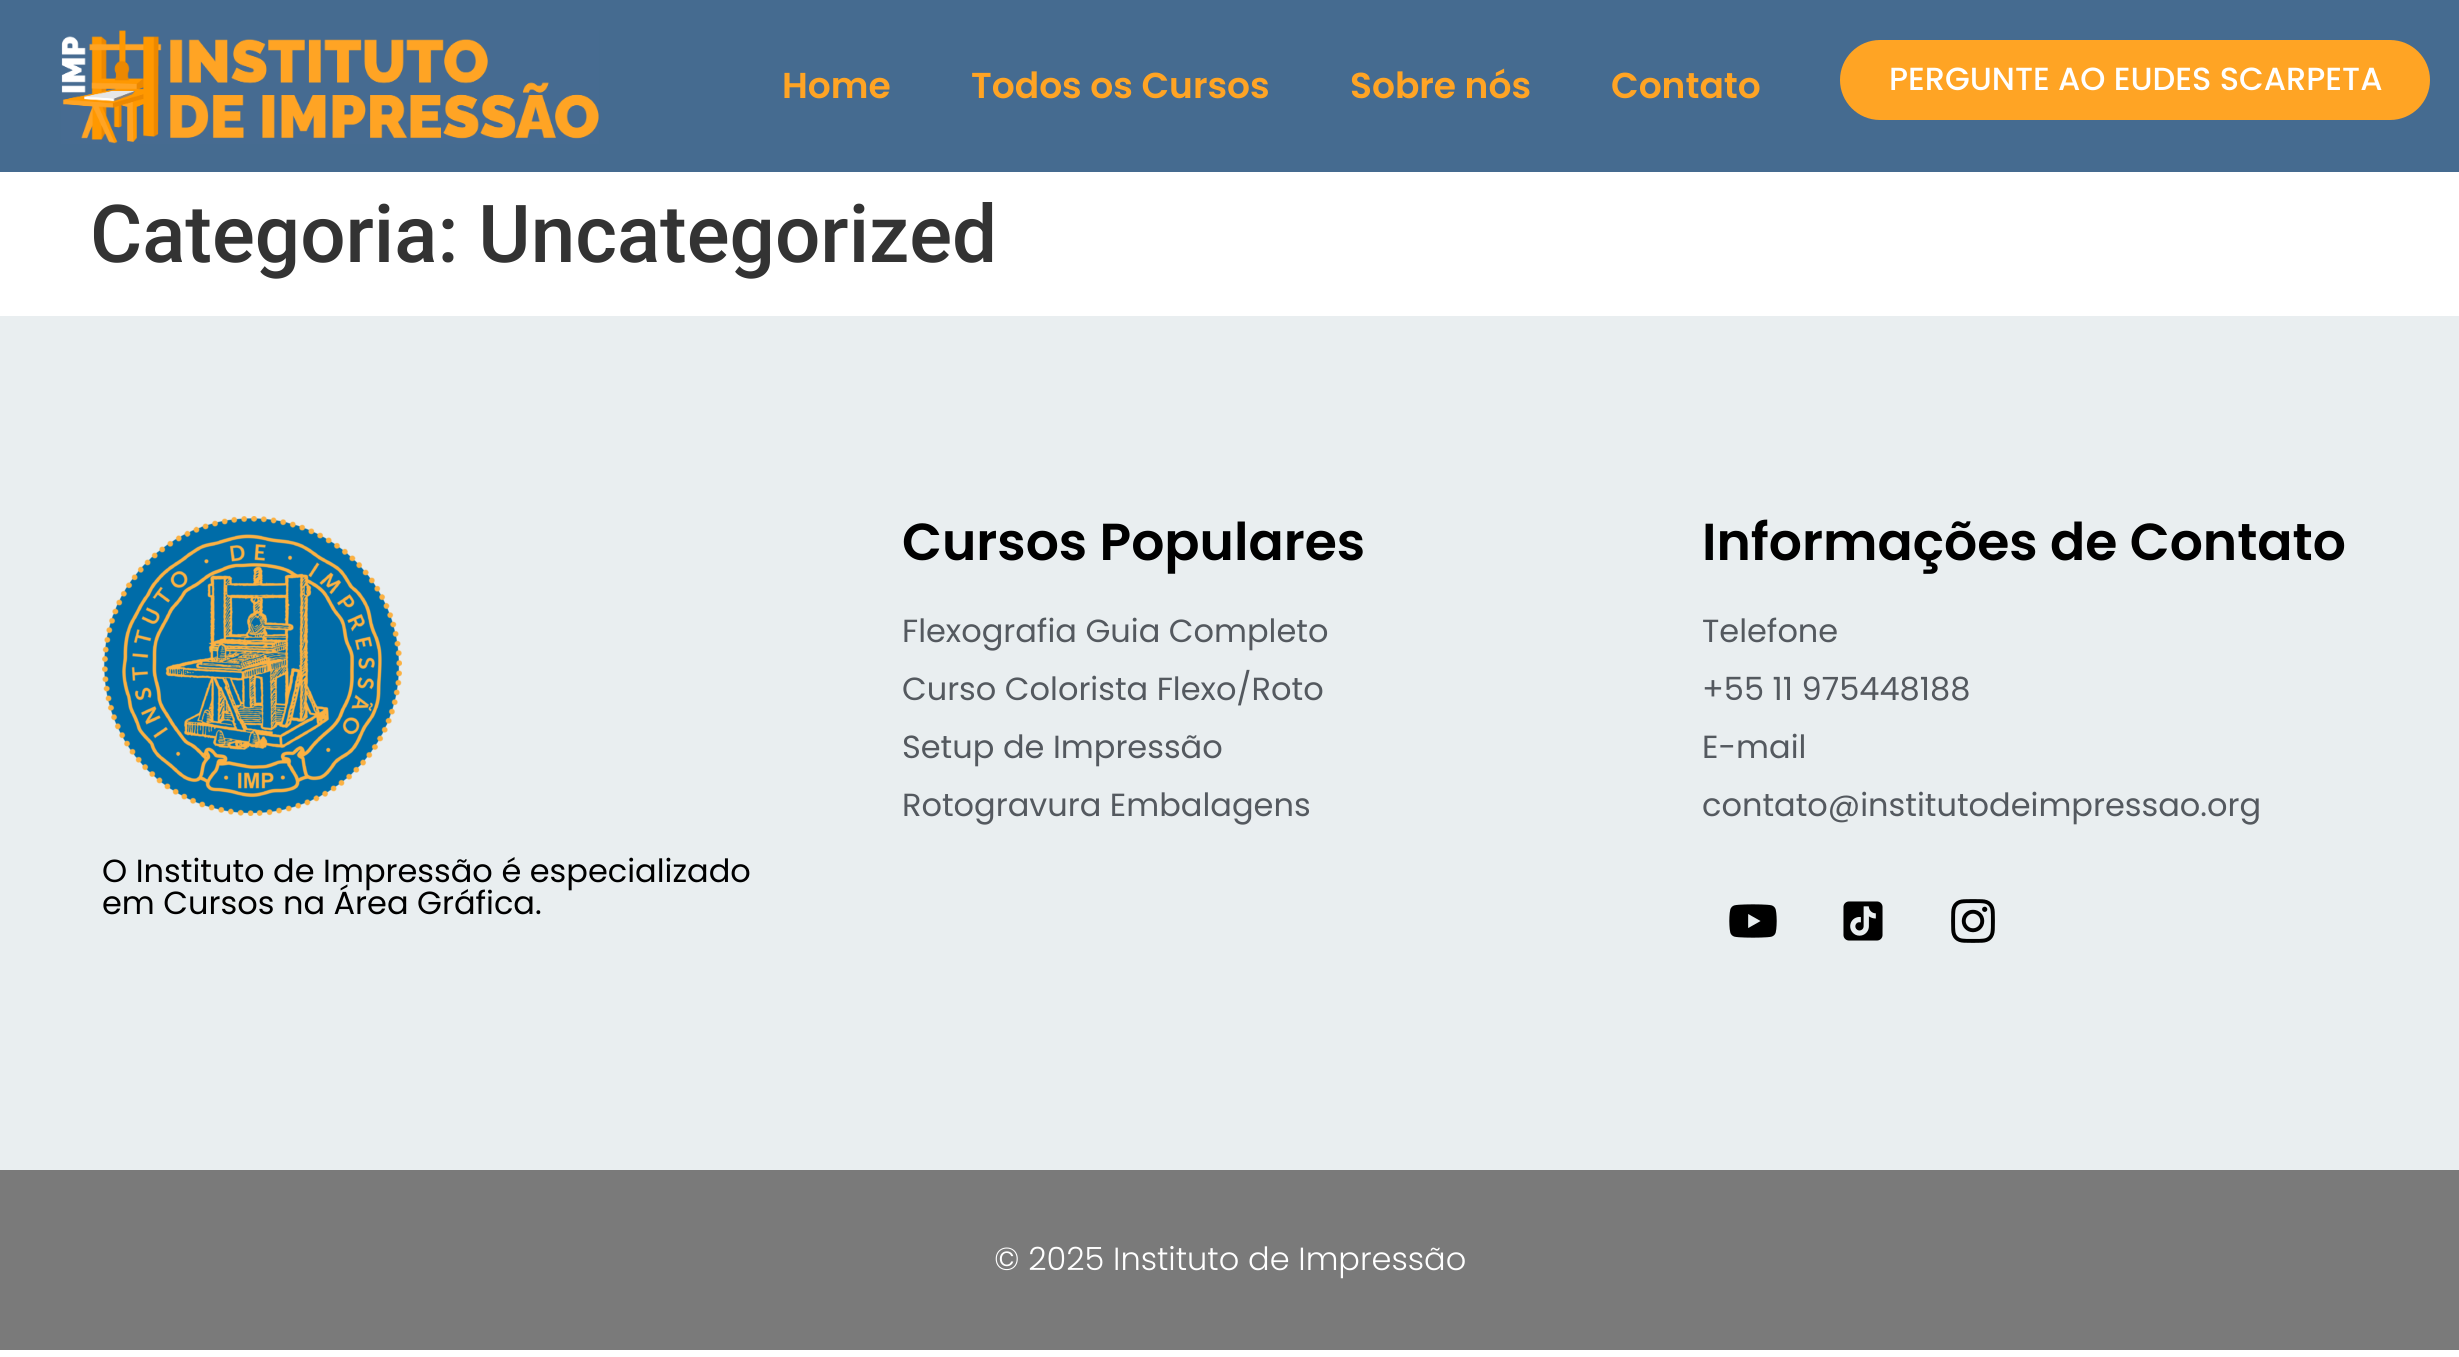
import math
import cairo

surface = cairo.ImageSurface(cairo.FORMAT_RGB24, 2459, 1357)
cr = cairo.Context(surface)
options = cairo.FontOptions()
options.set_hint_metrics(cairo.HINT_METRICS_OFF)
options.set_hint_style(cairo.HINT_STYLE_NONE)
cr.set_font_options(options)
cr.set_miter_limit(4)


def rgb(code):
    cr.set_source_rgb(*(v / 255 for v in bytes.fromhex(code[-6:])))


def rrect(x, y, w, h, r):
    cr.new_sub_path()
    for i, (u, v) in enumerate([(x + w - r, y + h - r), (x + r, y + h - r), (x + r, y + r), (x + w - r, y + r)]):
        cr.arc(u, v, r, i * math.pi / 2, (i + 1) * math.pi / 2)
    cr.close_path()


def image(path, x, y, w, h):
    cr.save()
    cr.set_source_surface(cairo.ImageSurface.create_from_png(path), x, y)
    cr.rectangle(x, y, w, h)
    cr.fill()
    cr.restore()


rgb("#ffffff")
cr.paint()
rgb("#456b90")
cr.rectangle(0, 0, 2459, 172)
cr.fill()
image("img/1.png", 61, 30, 538, 114)
rgb("#ffa424")
rrect(1840, 40, 590, 80, 40)
cr.fill()
rgb("#e9eef0")
cr.rectangle(0, 316, 2459, 854)
cr.fill()
image("img/2.png", 1729, 904, 48, 34)
image("img/3.png", 1843, 901, 40, 40)
image("img/4.png", 1951, 899, 44, 44)
image("img/5.png", 102, 516, 300, 300)
rgb("#7a7a7a")
cr.rectangle(0, 1170, 2459, 180)
cr.fill()
cr.select_font_face("Poppins SemiBold")
cr.set_font_size(36)
rgb("#ffa424")
for x, y, s in [
    (782, 98, "Home"),
    (971, 98, "Todos os Cursos"),
    (1350, 98, "Sobre nós"),
    (1611, 98, "Contato"),
]:
    cr.move_to(x, y)
    cr.show_text(s)
cr.select_font_face("Poppins Medium")
cr.set_font_size(32)
rgb("#ffffff")
cr.move_to(1889, 90)
cr.show_text("PERGUNTE AO EUDES SCARPETA")
cr.select_font_face("Roboto Medium")
cr.set_font_size(80)
rgb("#333333")
cr.move_to(90, 262)
cr.show_text("Categoria: Uncategorized")
cr.select_font_face("Poppins SemiBold")
cr.set_font_size(52)
rgb("#000000")
cr.move_to(902, 560)
cr.show_text("Cursos Populares")
cr.select_font_face("Poppins")
cr.set_font_size(32)
rgb("#54595f")
for x, y, s in [
    (902, 642, "Flexografia Guia Completo"),
    (902, 700, "Curso Colorista Flexo/Roto"),
    (902, 758, "Setup de Impressão"),
    (902, 816, "Rotogravura Embalagens"),
]:
    cr.move_to(x, y)
    cr.show_text(s)
cr.select_font_face("Poppins SemiBold")
cr.set_font_size(52)
rgb("#000000")
cr.move_to(1702, 560)
cr.show_text("Informações de Contato")
cr.select_font_face("Poppins")
cr.set_font_size(32)
rgb("#54595f")
for x, y, s in [
    (1702, 642, "Telefone"),
    (1702, 700, "+55 11 975448188"),
    (1702, 758, "E-mail"),
    (1702, 816, "contato@institutodeimpressao.org"),
]:
    cr.move_to(x, y)
    cr.show_text(s)
rgb("#000000")
cr.move_to(102, 882)
cr.show_text("O Instituto de Impressão é especializado")
cr.move_to(102, 914)
cr.show_text("em Cursos na Área Gráfica.")
cr.select_font_face("Poppins Light")
rgb("#ffffff")
cr.move_to(994, 1270)
cr.show_text("© 2025 Instituto de Impressão")
surface.write_to_png("page.png")
